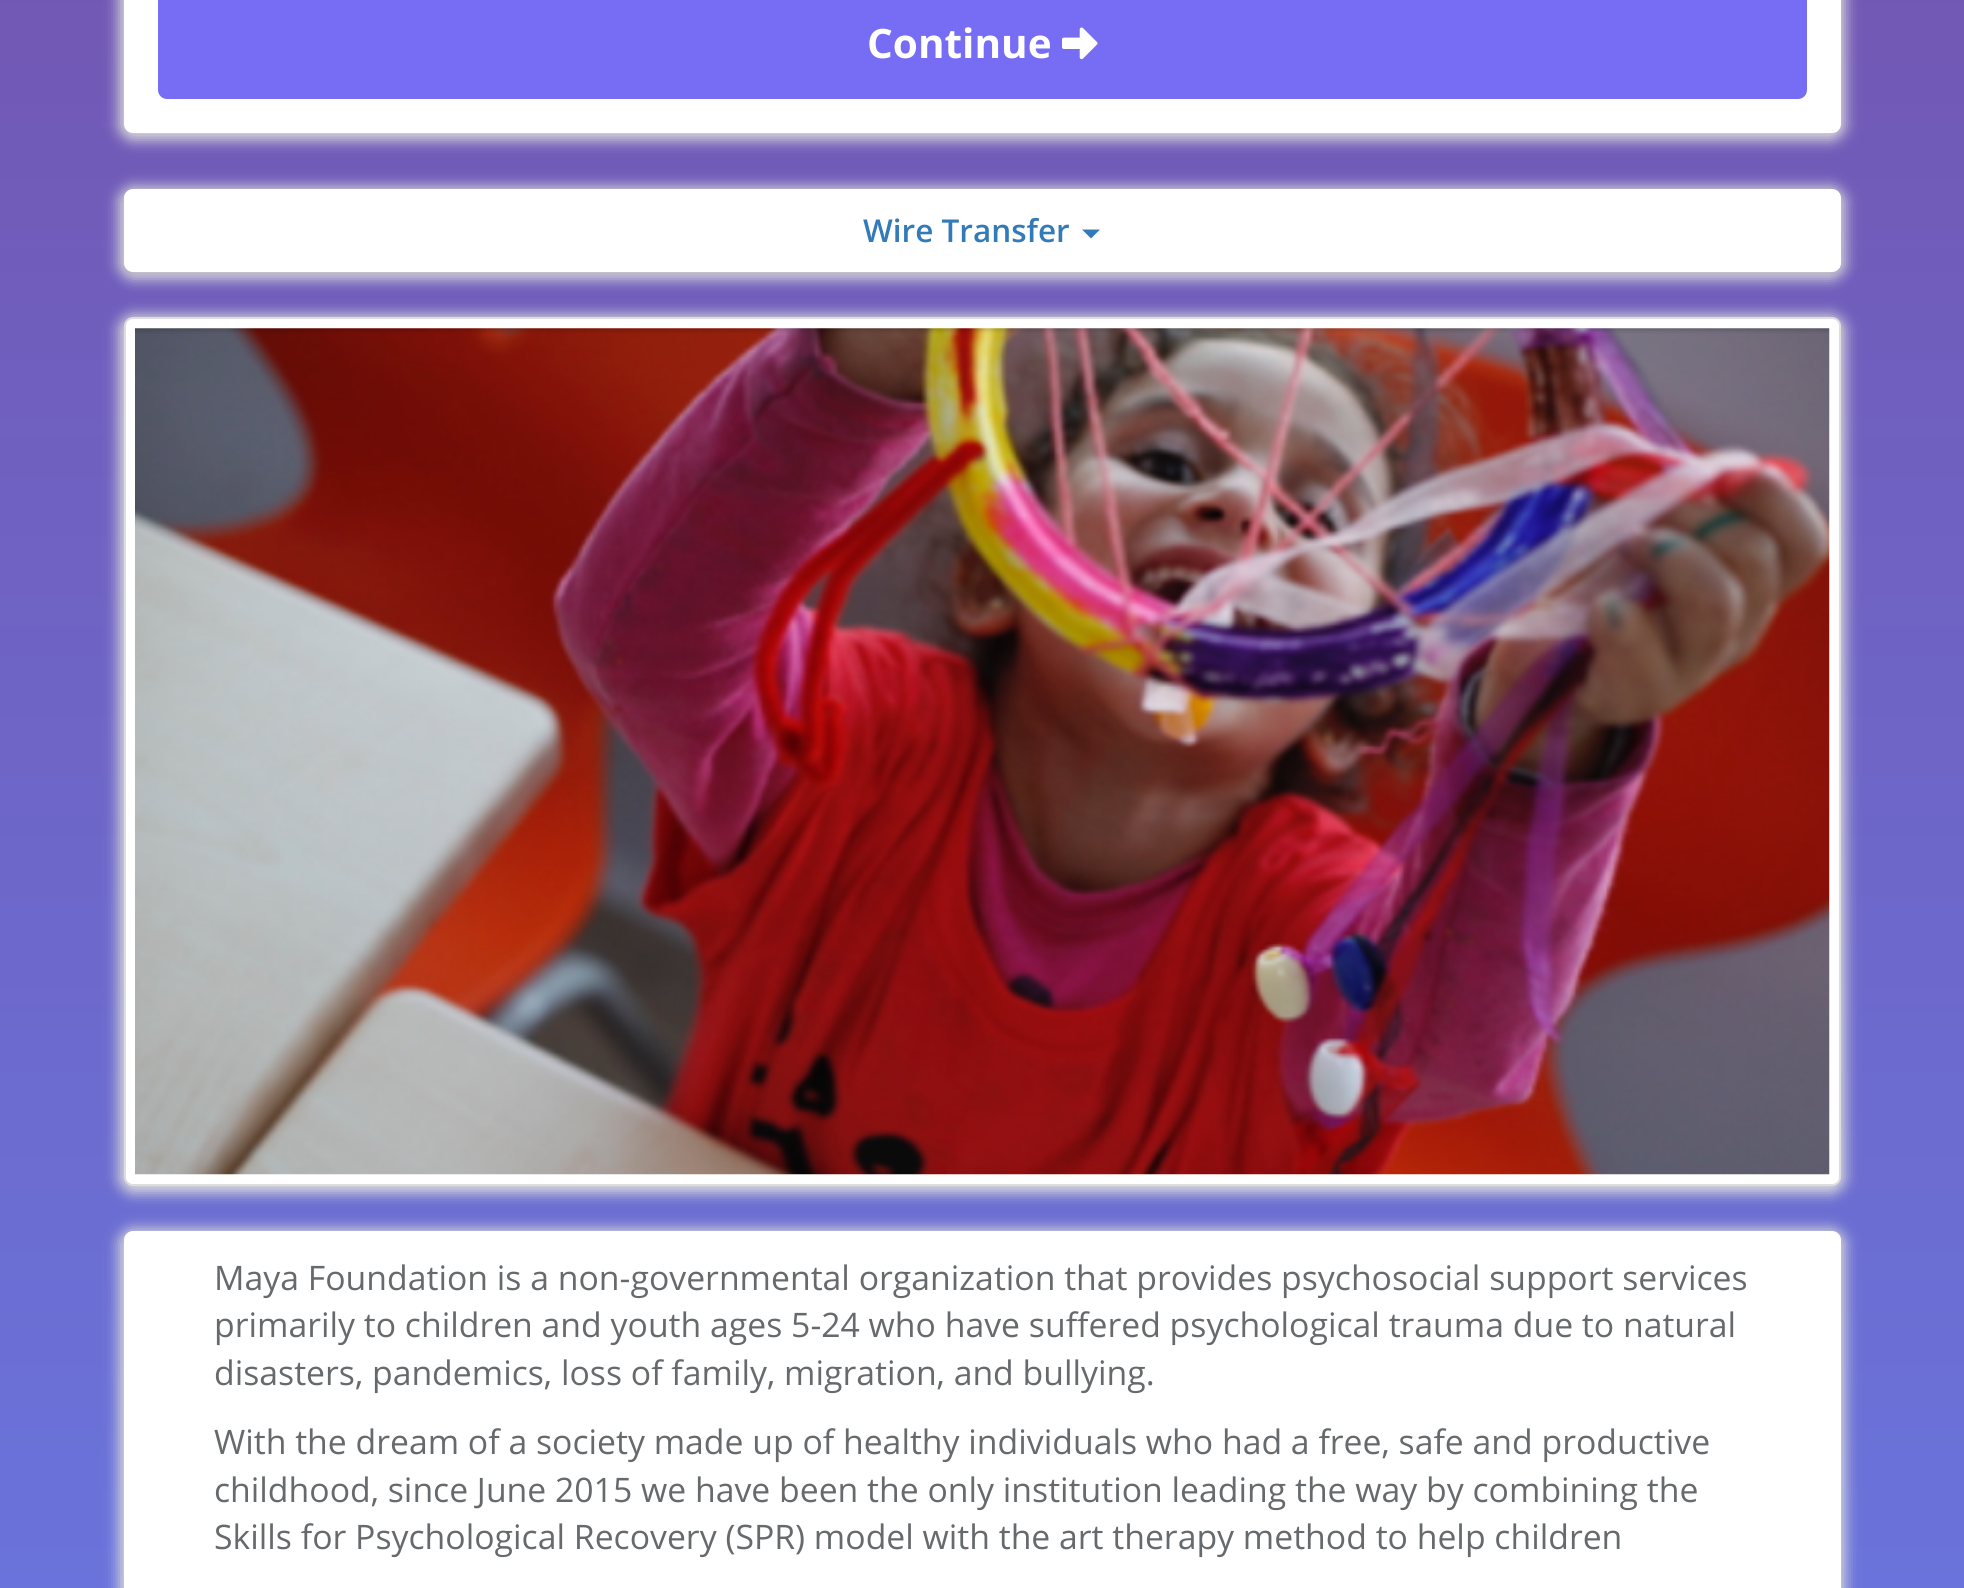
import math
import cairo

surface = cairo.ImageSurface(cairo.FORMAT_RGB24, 1964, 1588)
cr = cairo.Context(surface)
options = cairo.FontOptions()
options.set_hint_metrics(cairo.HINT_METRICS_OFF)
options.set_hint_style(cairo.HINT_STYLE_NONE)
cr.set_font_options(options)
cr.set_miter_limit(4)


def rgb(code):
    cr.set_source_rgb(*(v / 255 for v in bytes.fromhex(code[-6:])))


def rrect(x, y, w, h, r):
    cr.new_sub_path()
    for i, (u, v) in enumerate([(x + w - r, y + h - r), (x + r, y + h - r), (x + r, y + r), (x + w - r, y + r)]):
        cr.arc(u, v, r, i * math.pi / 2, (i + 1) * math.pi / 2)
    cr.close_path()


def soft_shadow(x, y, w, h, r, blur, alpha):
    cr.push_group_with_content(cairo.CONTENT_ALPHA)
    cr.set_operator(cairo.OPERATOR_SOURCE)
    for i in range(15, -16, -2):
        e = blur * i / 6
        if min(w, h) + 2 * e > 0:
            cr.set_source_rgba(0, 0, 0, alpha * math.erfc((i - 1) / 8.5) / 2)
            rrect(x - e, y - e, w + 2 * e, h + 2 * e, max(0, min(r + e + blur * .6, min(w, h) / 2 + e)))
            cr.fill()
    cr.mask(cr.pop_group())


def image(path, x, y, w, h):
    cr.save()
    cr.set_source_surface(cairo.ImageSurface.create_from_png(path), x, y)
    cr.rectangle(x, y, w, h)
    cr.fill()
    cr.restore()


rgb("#ffffff")
cr.paint()
gradient = cairo.LinearGradient(982, -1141, 982, 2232)
gradient.add_color_stop_rgba(0.1, 0.463, 0.294, 0.635, 1)
gradient.add_color_stop_rgba(1, 0.4, 0.494, 0.918, 1)
cr.set_source(gradient)
cr.rectangle(0, 0, 1964, 1588)
cr.fill()
rgb("#dcdcdc")
soft_shadow(119, -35, 1726, 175, 14, 7, 1)
rgb("#ffffff")
rrect(124, -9, 1717, 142, 9)
cr.fill()
rgb("#766df4")
rrect(158, -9, 1649, 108, 9)
cr.fill()
image("img/1.png", 1062, 27, 36, 33)
rgb("#dcdcdc")
soft_shadow(119, 187, 1726, 92, 14, 7, 1)
rgb("#000000")
soft_shadow(124, 191, 1717, 84, 9, 1, 0.05)
rgb("#ffffff")
rrect(124, 189, 1717, 83, 9)
cr.fill()
rgb("#337ab8")
cr.new_path()
cr.move_to(1082, 229.5)
cr.line_to(1100, 229.5)
cr.line_to(1091, 238.5)
cr.close_path()
cr.fill()
rgb("#dcdcdc")
soft_shadow(119, 315, 1726, 878, 14, 7, 1)
rgb("#ffffff")
rrect(125, 318, 1715, 867, 8)
cr.fill_preserve()
rgb("#dddddd")
cr.stroke()
image("img/2.png", 135, 328, 1695, 847)
rgb("#dcdcdc")
soft_shadow(119, 1229, 1726, 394, 14, 7, 1)
rgb("#ffffff")
rrect(124, 1231, 1717, 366, 9)
cr.fill()
cr.select_font_face("Open Sans", cairo.FONT_SLANT_NORMAL, cairo.FONT_WEIGHT_BOLD)
cr.set_font_size(40.5)
cr.move_to(867, 58)
cr.show_text("Continue")
cr.select_font_face("Open Sans SemiBold")
cr.set_font_size(31.5)
rgb("#337ab8")
cr.move_to(863, 242)
cr.show_text("Wire Transfer")
cr.select_font_face("Open Sans")
cr.set_font_size(33.75)
rgb("#676a6c")
for x, y, s in [
    (214, 1290, "Maya Foundation is a non-governmental organization that provides psychosocial support services"),
    (214, 1337, "primarily to children and youth ages 5-24 who have suffered psychological trauma due to natural"),
    (214, 1385, "disasters, pandemics, loss of family, migration, and bullying."),
    (214, 1454, "With the dream of a society made up of healthy individuals who had a free, safe and productive"),
    (214, 1502, "childhood, since June 2015 we have been the only institution leading the way by combining the"),
    (214, 1549, "Skills for Psychological Recovery (SPR) model with the art therapy method to help children"),
]:
    cr.move_to(x, y)
    cr.show_text(s)
surface.write_to_png("page.png")
